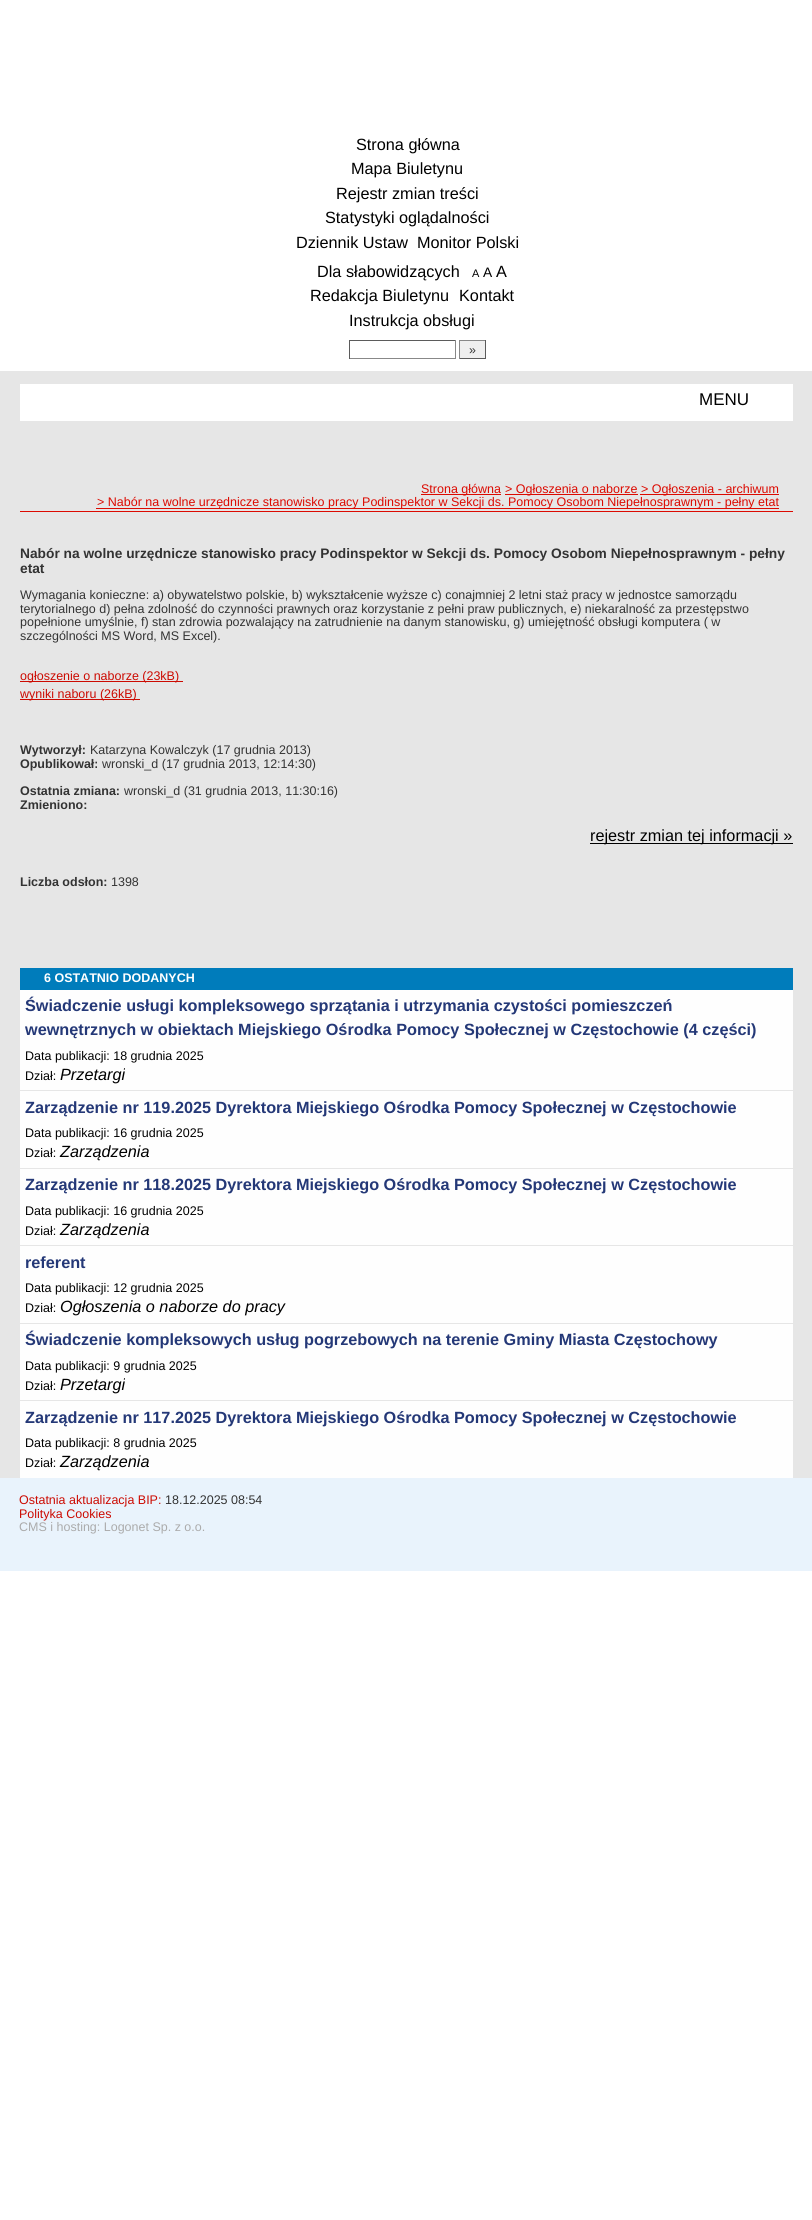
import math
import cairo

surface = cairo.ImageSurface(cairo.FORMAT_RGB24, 812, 2220)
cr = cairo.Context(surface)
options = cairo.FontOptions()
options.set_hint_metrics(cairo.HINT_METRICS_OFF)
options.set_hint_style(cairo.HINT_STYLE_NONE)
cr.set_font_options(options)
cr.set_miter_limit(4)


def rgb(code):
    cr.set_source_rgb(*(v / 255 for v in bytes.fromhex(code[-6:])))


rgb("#ffffff")
cr.paint()
for x, y, w, h, color in [
    (349, 340, 107, 1, "#5b5b5b"),
    (455, 340, 1, 19, "#888888"),
    (349, 358, 107, 1, "#888888"),
    (349, 340, 1, 19, "#5b5b5b"),
    (460, 341, 25, 17, "#efefef"),
    (459, 340, 27, 1, "#888888"),
    (485, 340, 1, 19, "#5b5b5b"),
    (459, 358, 27, 1, "#5b5b5b"),
    (459, 340, 1, 19, "#888888"),
    (0, 371, 812, 1107, "#e6e6e6"),
    (20, 384, 773, 37, "#ffffff"),
    (20, 511, 773, 1, "#dc0a01"),
    (421, 494, 80, 1, "#dc0a01"),
    (505, 494, 133, 1, "#dc0a01"),
    (640, 494, 139, 1, "#dc0a01"),
    (96, 508, 683, 1, "#dc0a01"),
    (20, 681, 163, 1, "#cc0a01"),
    (20, 699, 120, 1, "#cc0a01"),
    (590, 843, 203, 1, "#000000"),
    (20, 968, 773, 22, "#007cbb"),
    (20, 990, 773, 100, "#fefefe"),
    (20, 1091, 773, 77, "#fefefe"),
    (20, 1169, 773, 76, "#fefefe"),
    (20, 1246, 773, 77, "#fefefe"),
    (20, 1324, 773, 76, "#fefefe"),
    (20, 1401, 773, 77, "#fefefe"),
    (0, 1478, 812, 93, "#e9f3fc"),
]:
    rgb(color)
    cr.rectangle(x, y, w, h)
    cr.fill()
cr.select_font_face("Liberation Sans")
cr.set_font_size(16.25)
rgb("#000000")
for x, y, s in [
    (356, 150, "Strona główna"),
    (351, 174, "Mapa Biuletynu"),
    (336, 199, "Rejestr zmian treści"),
    (325, 223, "Statystyki oglądalności"),
    (296, 248, "Dziennik Ustaw"),
    (417, 248, "Monitor Polski"),
    (317, 277, "Dla słabowidzących"),
]:
    cr.move_to(x, y)
    cr.show_text(s)
cr.set_font_size(11)
cr.move_to(472, 277)
cr.show_text("A")
cr.set_font_size(13.75)
cr.move_to(483, 277)
cr.show_text("A")
cr.set_font_size(16.25)
for x, y, s in [
    (496, 277, "A"),
    (310, 301, "Redakcja Biuletynu"),
    (459, 301, "Kontakt"),
    (349, 326, "Instrukcja obsługi"),
]:
    cr.move_to(x, y)
    cr.show_text(s)
cr.set_font_size(12.5)
rgb("#333333")
cr.move_to(469, 354)
cr.show_text("»")
cr.set_font_size(17)
rgb("#000000")
cr.move_to(699, 405)
cr.show_text("MENU")
cr.set_font_size(12.5)
rgb("#dc0a01")
for x, y, s in [
    (421, 493, "Strona główna"),
    (505, 493, "> Ogłoszenia o naborze"),
    (641, 493, "> Ogłoszenia - archiwum"),
    (97, 506, "> Nabór na wolne urzędnicze stanowisko pracy Podinspektor w Sekcji ds. Pomocy Osobom Niepełnosprawnym - pełny etat"),
]:
    cr.move_to(x, y)
    cr.show_text(s)
cr.select_font_face("Liberation Sans", cairo.FONT_SLANT_NORMAL, cairo.FONT_WEIGHT_BOLD)
cr.set_font_size(13.75)
rgb("#333333")
cr.move_to(20, 558)
cr.show_text("Nabór na wolne urzędnicze stanowisko pracy Podinspektor w Sekcji ds. Pomocy Osobom Niepełnosprawnym - pełny")
cr.move_to(20, 573)
cr.show_text("etat")
cr.select_font_face("Liberation Sans")
cr.set_font_size(12.5)
for x, y, s in [
    (20, 599, "Wymagania konieczne: a) obywatelstwo polskie, b) wykształcenie wyższe c) conajmniej 2 letni staż pracy w jednostce samorządu"),
    (20, 613, "terytorialnego d) pełna zdolność do czynności prawnych oraz korzystanie z pełni praw publicznych, e) niekaralność za przestępstwo"),
    (20, 626, "popełnione umyślnie, f) stan zdrowia pozwalający na zatrudnienie na danym stanowisku, g) umiejętność obsługi komputera ( w"),
    (20, 640, "szczególności MS Word, MS Excel)."),
]:
    cr.move_to(x, y)
    cr.show_text(s)
rgb("#cc0a01")
cr.move_to(20, 680)
cr.show_text("ogłoszenie o naborze (23kB)")
cr.move_to(20, 698)
cr.show_text("wyniki naboru (26kB)")
cr.select_font_face("Liberation Sans", cairo.FONT_SLANT_NORMAL, cairo.FONT_WEIGHT_BOLD)
rgb("#333333")
cr.move_to(20, 754)
cr.show_text("Wytworzył:")
cr.select_font_face("Liberation Sans")
cr.move_to(90, 754)
cr.show_text("Katarzyna Kowalczyk (17 grudnia 2013)")
cr.select_font_face("Liberation Sans", cairo.FONT_SLANT_NORMAL, cairo.FONT_WEIGHT_BOLD)
cr.move_to(20, 768)
cr.show_text("Opublikował:")
cr.select_font_face("Liberation Sans")
cr.move_to(102, 768)
cr.show_text("wronski_d (17 grudnia 2013, 12:14:30)")
cr.select_font_face("Liberation Sans", cairo.FONT_SLANT_NORMAL, cairo.FONT_WEIGHT_BOLD)
cr.move_to(20, 795)
cr.show_text("Ostatnia zmiana:")
cr.select_font_face("Liberation Sans")
cr.move_to(124, 795)
cr.show_text("wronski_d (31 grudnia 2013, 11:30:16)")
cr.select_font_face("Liberation Sans", cairo.FONT_SLANT_NORMAL, cairo.FONT_WEIGHT_BOLD)
cr.move_to(20, 809)
cr.show_text("Zmieniono:")
cr.select_font_face("Liberation Sans")
cr.set_font_size(16.25)
rgb("#000000")
cr.move_to(590, 841)
cr.show_text("rejestr zmian tej informacji »")
cr.select_font_face("Liberation Sans", cairo.FONT_SLANT_NORMAL, cairo.FONT_WEIGHT_BOLD)
cr.set_font_size(12.5)
rgb("#333333")
cr.move_to(20, 886)
cr.show_text("Liczba odsłon:")
cr.select_font_face("Liberation Sans")
cr.move_to(111, 886)
cr.show_text("1398")
cr.select_font_face("Liberation Sans", cairo.FONT_SLANT_NORMAL, cairo.FONT_WEIGHT_BOLD)
rgb("#ffffff")
cr.move_to(44, 982)
cr.show_text("6 OSTATNIO DODANYCH")
cr.set_font_size(16.25)
rgb("#243877")
cr.move_to(25, 1011)
cr.show_text("Świadczenie usługi kompleksowego sprzątania i utrzymania czystości pomieszczeń")
cr.move_to(25, 1035)
cr.show_text("wewnętrznych w obiektach Miejskiego Ośrodka Pomocy Społecznej w Częstochowie (4 części)")
cr.select_font_face("Liberation Sans")
cr.set_font_size(12.5)
rgb("#000000")
cr.move_to(25, 1060)
cr.show_text("Data publikacji: 18 grudnia 2025")
cr.move_to(25, 1080)
cr.show_text("Dział:")
cr.select_font_face("Liberation Sans", cairo.FONT_SLANT_ITALIC)
cr.set_font_size(16.25)
cr.move_to(60, 1080)
cr.show_text("Przetargi")
cr.select_font_face("Liberation Sans", cairo.FONT_SLANT_NORMAL, cairo.FONT_WEIGHT_BOLD)
rgb("#243877")
cr.move_to(25, 1113)
cr.show_text("Zarządzenie nr 119.2025 Dyrektora Miejskiego Ośrodka Pomocy Społecznej w Częstochowie")
cr.select_font_face("Liberation Sans")
cr.set_font_size(12.5)
rgb("#000000")
cr.move_to(25, 1137)
cr.show_text("Data publikacji: 16 grudnia 2025")
cr.move_to(25, 1157)
cr.show_text("Dział:")
cr.select_font_face("Liberation Sans", cairo.FONT_SLANT_ITALIC)
cr.set_font_size(16.25)
cr.move_to(60, 1157)
cr.show_text("Zarządzenia")
cr.select_font_face("Liberation Sans", cairo.FONT_SLANT_NORMAL, cairo.FONT_WEIGHT_BOLD)
rgb("#243877")
cr.move_to(25, 1190)
cr.show_text("Zarządzenie nr 118.2025 Dyrektora Miejskiego Ośrodka Pomocy Społecznej w Częstochowie")
cr.select_font_face("Liberation Sans")
cr.set_font_size(12.5)
rgb("#000000")
cr.move_to(25, 1215)
cr.show_text("Data publikacji: 16 grudnia 2025")
cr.move_to(25, 1235)
cr.show_text("Dział:")
cr.select_font_face("Liberation Sans", cairo.FONT_SLANT_ITALIC)
cr.set_font_size(16.25)
cr.move_to(60, 1235)
cr.show_text("Zarządzenia")
cr.select_font_face("Liberation Sans", cairo.FONT_SLANT_NORMAL, cairo.FONT_WEIGHT_BOLD)
rgb("#243877")
cr.move_to(25, 1268)
cr.show_text("referent")
cr.select_font_face("Liberation Sans")
cr.set_font_size(12.5)
rgb("#000000")
cr.move_to(25, 1292)
cr.show_text("Data publikacji: 12 grudnia 2025")
cr.move_to(25, 1312)
cr.show_text("Dział:")
cr.select_font_face("Liberation Sans", cairo.FONT_SLANT_ITALIC)
cr.set_font_size(16.25)
cr.move_to(60, 1312)
cr.show_text("Ogłoszenia o naborze do pracy")
cr.select_font_face("Liberation Sans", cairo.FONT_SLANT_NORMAL, cairo.FONT_WEIGHT_BOLD)
rgb("#243877")
cr.move_to(25, 1345)
cr.show_text("Świadczenie kompleksowych usług pogrzebowych na terenie Gminy Miasta Częstochowy")
cr.select_font_face("Liberation Sans")
cr.set_font_size(12.5)
rgb("#000000")
cr.move_to(25, 1370)
cr.show_text("Data publikacji: 9 grudnia 2025")
cr.move_to(25, 1390)
cr.show_text("Dział:")
cr.select_font_face("Liberation Sans", cairo.FONT_SLANT_ITALIC)
cr.set_font_size(16.25)
cr.move_to(60, 1390)
cr.show_text("Przetargi")
cr.select_font_face("Liberation Sans", cairo.FONT_SLANT_NORMAL, cairo.FONT_WEIGHT_BOLD)
rgb("#243877")
cr.move_to(25, 1423)
cr.show_text("Zarządzenie nr 117.2025 Dyrektora Miejskiego Ośrodka Pomocy Społecznej w Częstochowie")
cr.select_font_face("Liberation Sans")
cr.set_font_size(12.5)
rgb("#000000")
cr.move_to(25, 1447)
cr.show_text("Data publikacji: 8 grudnia 2025")
cr.move_to(25, 1467)
cr.show_text("Dział:")
cr.select_font_face("Liberation Sans", cairo.FONT_SLANT_ITALIC)
cr.set_font_size(16.25)
cr.move_to(60, 1467)
cr.show_text("Zarządzenia")
cr.select_font_face("Liberation Sans")
cr.set_font_size(12.5)
rgb("#cc0a01")
cr.move_to(19, 1504)
cr.show_text("Ostatnia aktualizacja BIP:")
rgb("#333333")
cr.move_to(165, 1504)
cr.show_text("18.12.2025 08:54")
rgb("#cc0a01")
cr.move_to(19, 1518)
cr.show_text("Polityka Cookies")
rgb("#ababab")
cr.move_to(19, 1531)
cr.show_text("CMS i hosting: Logonet Sp. z o.o.")
surface.write_to_png("page.png")
